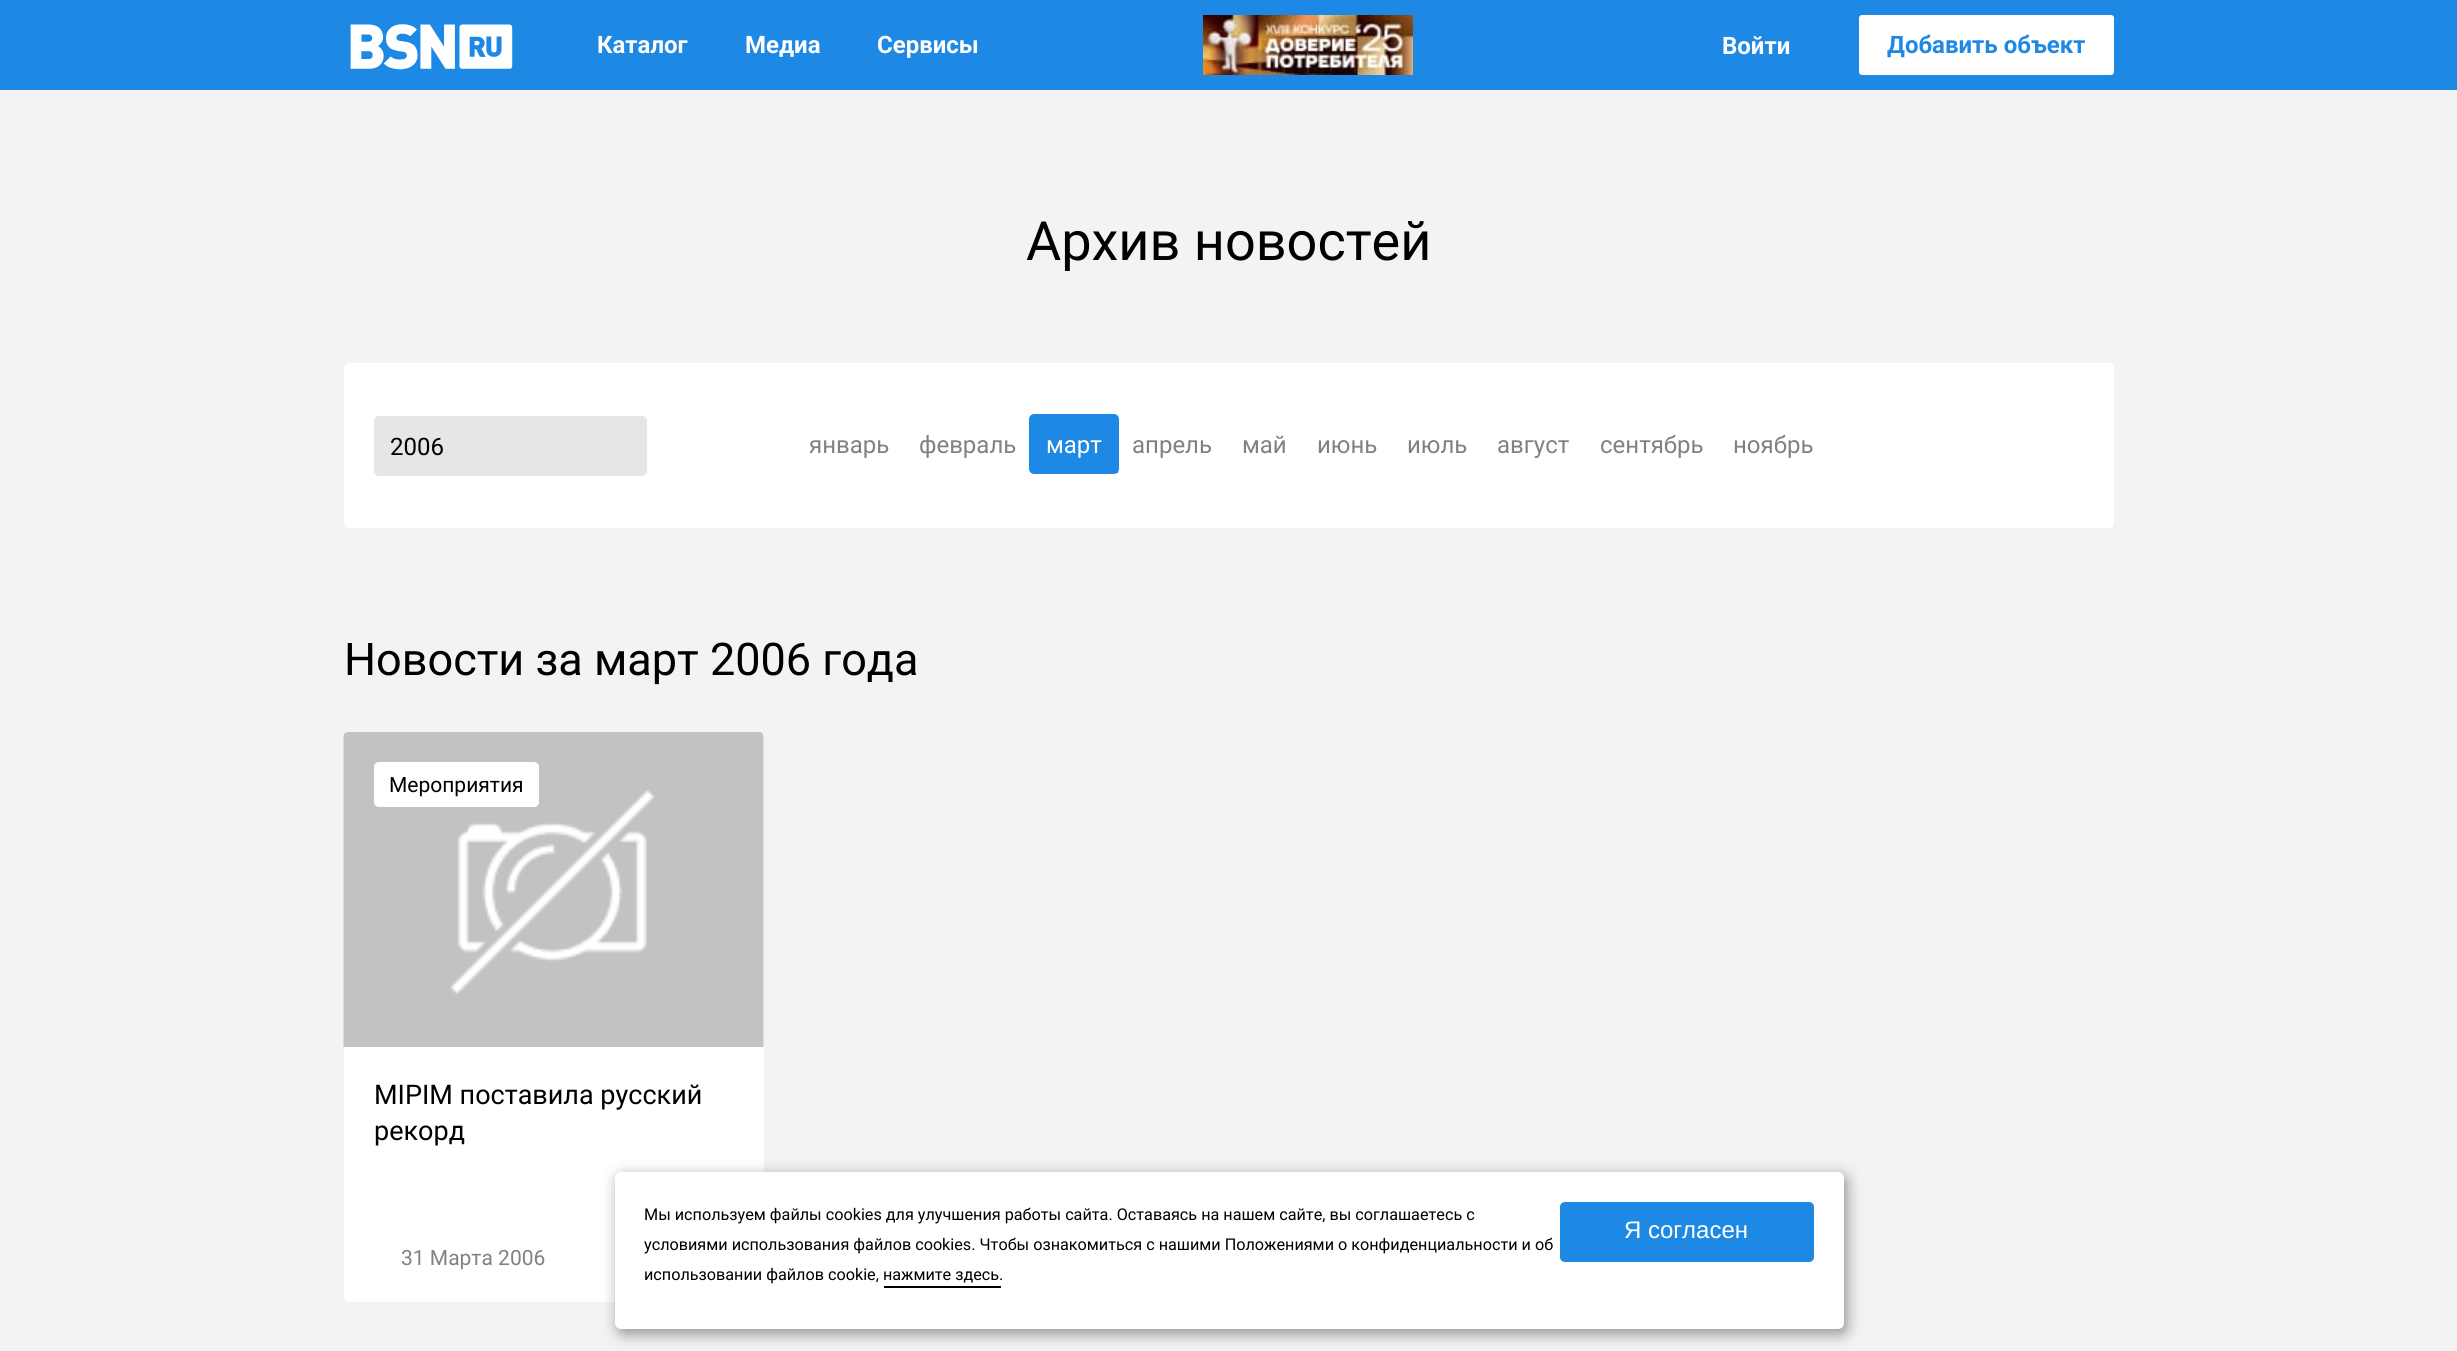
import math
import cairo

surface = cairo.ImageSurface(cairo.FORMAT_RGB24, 2457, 1351)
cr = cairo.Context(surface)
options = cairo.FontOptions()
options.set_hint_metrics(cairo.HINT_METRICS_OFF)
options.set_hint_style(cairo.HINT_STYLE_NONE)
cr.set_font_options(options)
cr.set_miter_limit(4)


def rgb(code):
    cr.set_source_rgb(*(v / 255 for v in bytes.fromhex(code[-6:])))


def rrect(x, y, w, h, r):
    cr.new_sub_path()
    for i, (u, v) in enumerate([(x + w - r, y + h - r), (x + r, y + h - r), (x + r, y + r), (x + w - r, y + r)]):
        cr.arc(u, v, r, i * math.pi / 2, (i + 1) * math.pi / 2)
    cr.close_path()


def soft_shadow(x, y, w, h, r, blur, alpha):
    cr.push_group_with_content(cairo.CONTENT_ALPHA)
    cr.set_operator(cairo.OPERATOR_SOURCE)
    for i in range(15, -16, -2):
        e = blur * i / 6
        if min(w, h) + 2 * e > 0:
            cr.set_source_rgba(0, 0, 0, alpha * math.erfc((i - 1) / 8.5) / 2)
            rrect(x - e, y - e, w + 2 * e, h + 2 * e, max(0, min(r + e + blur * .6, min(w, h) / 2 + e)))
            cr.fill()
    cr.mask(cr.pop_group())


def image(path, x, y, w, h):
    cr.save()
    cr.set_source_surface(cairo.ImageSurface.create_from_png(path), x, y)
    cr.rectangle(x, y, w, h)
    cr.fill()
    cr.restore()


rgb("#f3f3f3")
cr.paint()
rgb("#1e88e5")
cr.rectangle(0, 0, 2457, 90)
cr.fill()
image("img/1.png", 350, 24, 163, 46)
image("img/2.png", 1203, 15, 210, 60)
rgb("#ffffff")
rrect(1859, 15, 255, 60, 3)
cr.fill()
rrect(344, 363, 1770, 165, 5)
cr.fill()
rgb("#e6e6e6")
rrect(374, 416, 273, 60, 5)
cr.fill()
rgb("#1e88e5")
cr.rectangle(1032, 417, 86, 56)
cr.fill()
rrect(1030.5, 415.5, 87, 57, 3.5)
cr.set_line_width(3)
cr.stroke()
rgb("#ffffff")
rrect(344, 732, 420, 570, 5)
cr.fill()
image("img/3.png", 343, 732, 421, 315)
rrect(374, 762, 165, 45, 5)
cr.fill()
rgb("#000000")
soft_shadow(618, 1176, 1229, 158, 6, 7.5, 0.4)
rgb("#ffffff")
rrect(615, 1172, 1229, 157, 6)
cr.fill()
rgb("#000000")
cr.rectangle(884, 1286, 117, 2)
cr.fill()
rgb("#1e88e5")
rrect(1560, 1202, 254, 60, 5)
cr.fill()
cr.select_font_face("Roboto", cairo.FONT_SLANT_NORMAL, cairo.FONT_WEIGHT_BOLD)
cr.set_font_size(24)
rgb("#ffffff")
for x, y, s in [
    (597, 53, "Каталог"),
    (745, 53, "Медиа"),
    (877, 53, "Сервисы"),
    (1722, 54, "Войти"),
]:
    cr.move_to(x, y)
    cr.show_text(s)
rgb("#1e88e5")
cr.move_to(1887, 53)
cr.show_text("Добавить объект")
cr.select_font_face("Roboto")
cr.set_font_size(54)
rgb("#000000")
cr.move_to(1026, 260)
cr.show_text("Архив новостей")
cr.set_font_size(24)
cr.move_to(390, 455)
cr.show_text("2006")
rgb("#818181")
cr.move_to(809, 453)
cr.show_text("январь")
cr.move_to(919, 453)
cr.show_text("февраль")
rgb("#ffffff")
cr.move_to(1046, 453)
cr.show_text("март")
rgb("#818181")
for x, y, s in [
    (1132, 453, "апрель"),
    (1242, 453, "май"),
    (1317, 453, "июнь"),
    (1407, 453, "июль"),
    (1497, 453, "август"),
    (1600, 453, "сентябрь"),
    (1733, 453, "ноябрь"),
]:
    cr.move_to(x, y)
    cr.show_text(s)
cr.set_font_size(45)
rgb("#000000")
cr.move_to(344, 675)
cr.show_text("Новости за март 2006 года")
cr.set_font_size(21)
cr.move_to(389, 792)
cr.show_text("Мероприятия")
cr.set_font_size(27)
cr.move_to(374, 1104)
cr.show_text("MIPIM поставила русский")
cr.move_to(374, 1140)
cr.show_text("рекорд")
cr.set_font_size(21)
rgb("#818181")
cr.move_to(401, 1265)
cr.show_text("31 Марта 2006")
cr.set_font_size(16.2)
rgb("#000000")
for x, y, s in [
    (644, 1220, "Мы используем файлы cookies для улучшения работы сайта. Оставаясь на нашем сайте, вы соглашаетесь с"),
    (644, 1250, "условиями использования файлов cookies. Чтобы ознакомиться с нашими Положениями о конфиденциальности и об"),
    (644, 1280, "использовании файлов cookie, нажмите здесь."),
]:
    cr.move_to(x, y)
    cr.show_text(s)
cr.select_font_face("Liberation Sans")
cr.set_font_size(24)
rgb("#ffffff")
cr.move_to(1624, 1238)
cr.show_text("Я согласен")
surface.write_to_png("page.png")
